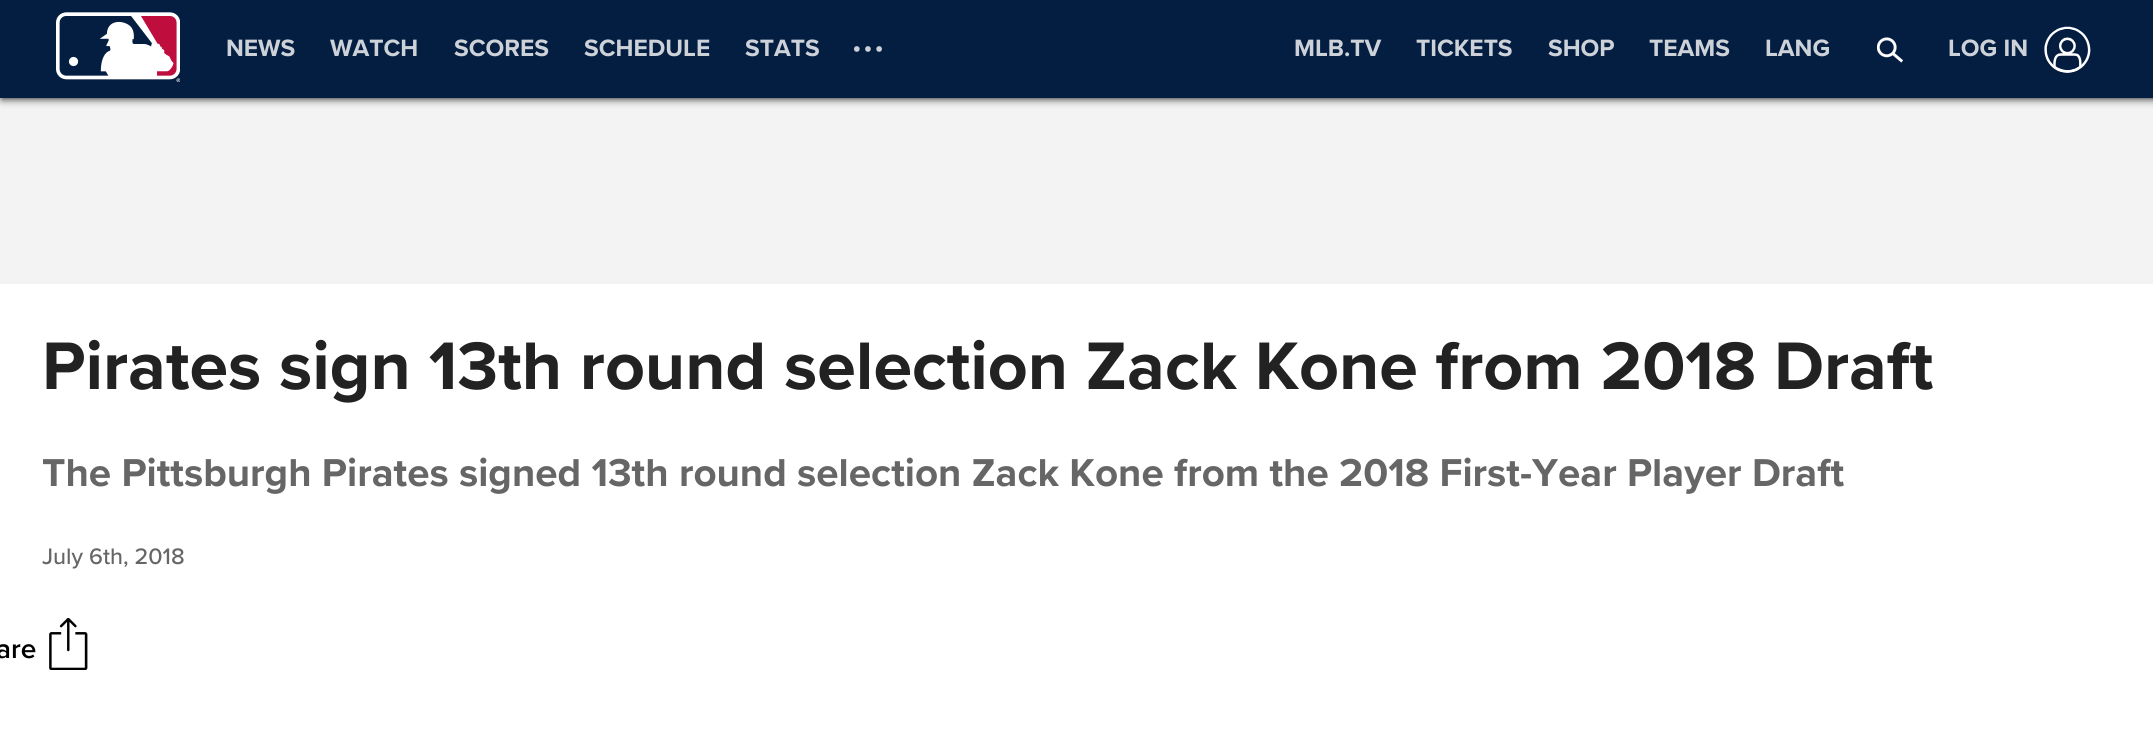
import math
import cairo

surface = cairo.ImageSurface(cairo.FORMAT_RGB24, 2153, 738)
cr = cairo.Context(surface)
options = cairo.FontOptions()
options.set_hint_metrics(cairo.HINT_METRICS_OFF)
options.set_hint_style(cairo.HINT_STYLE_NONE)
cr.set_font_options(options)
cr.set_miter_limit(4)


def rgb(code):
    cr.set_source_rgb(*(v / 255 for v in bytes.fromhex(code[-6:])))


def rrect(x, y, w, h, r):
    cr.new_sub_path()
    for i, (u, v) in enumerate([(x + w - r, y + h - r), (x + r, y + h - r), (x + r, y + r), (x + w - r, y + r)]):
        cr.arc(u, v, r, i * math.pi / 2, (i + 1) * math.pi / 2)
    cr.close_path()


def soft_shadow(x, y, w, h, r, blur, alpha):
    cr.push_group_with_content(cairo.CONTENT_ALPHA)
    cr.set_operator(cairo.OPERATOR_SOURCE)
    for i in range(15, -16, -2):
        e = blur * i / 6
        if min(w, h) + 2 * e > 0:
            cr.set_source_rgba(0, 0, 0, alpha * math.erfc((i - 1) / 8.5) / 2)
            rrect(x - e, y - e, w + 2 * e, h + 2 * e, max(0, min(r + e + blur * .6, min(w, h) / 2 + e)))
            cr.fill()
    cr.mask(cr.pop_group())


def image(path, x, y, w, h):
    cr.save()
    cr.set_source_surface(cairo.ImageSurface.create_from_png(path), x, y)
    cr.rectangle(x, y, w, h)
    cr.fill()
    cr.restore()


rgb("#ffffff")
cr.paint()
rgb("#f3f3f3")
cr.rectangle(0, 98, 2153, 186)
cr.fill()
rgb("#000000")
soft_shadow(2, 0, 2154, 98, 0, 4.5, 1)
rgb("#041e42")
cr.rectangle(0, 0, 2153, 98)
cr.fill()
image("img/1.png", 56, 12, 124, 70)
image("img/2.png", 854, 46, 28, 6)
image("img/3.png", 1877, 37, 26, 26)
image("img/4.png", 2044, 26, 47, 49)
image("img/5.png", 49, 618, 39, 52)
cr.select_font_face("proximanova", cairo.FONT_SLANT_NORMAL, cairo.FONT_WEIGHT_BOLD)
cr.set_font_size(24.5)
rgb("#cdd2d9")
for x, y, s in [
    (226, 56, "NEWS"),
    (330, 56, "WATCH"),
    (454, 56, "SCORES"),
    (584, 56, "SCHEDULE"),
    (745, 56, "STATS"),
    (1294, 56, "MLB.TV"),
    (1416, 56, "TICKETS"),
    (1548, 56, "SHOP"),
    (1649, 56, "TEAMS"),
    (1765, 56, "LANG"),
    (1948, 56, "LOG IN"),
]:
    cr.move_to(x, y)
    cr.show_text(s)
cr.set_font_size(69.65)
rgb("#222222")
cr.move_to(42, 389)
cr.show_text("Pirates sign 13th round selection Zack Kone from 2018 Draft")
cr.set_font_size(40.3)
rgb("#666666")
cr.move_to(42, 486)
cr.show_text("The Pittsburgh Pirates signed 13th round selection Zack Kone from the 2018 First-Year Player Draft")
cr.select_font_face("Proxima Nova Medium")
cr.set_font_size(23.25)
cr.move_to(42, 564)
cr.show_text("July 6th, 2018")
cr.select_font_face("Proxima Nova SemiBold")
cr.set_font_size(28)
rgb("#000000")
cr.move_to(-4, 658)
cr.show_text("are")
surface.write_to_png("page.png")
